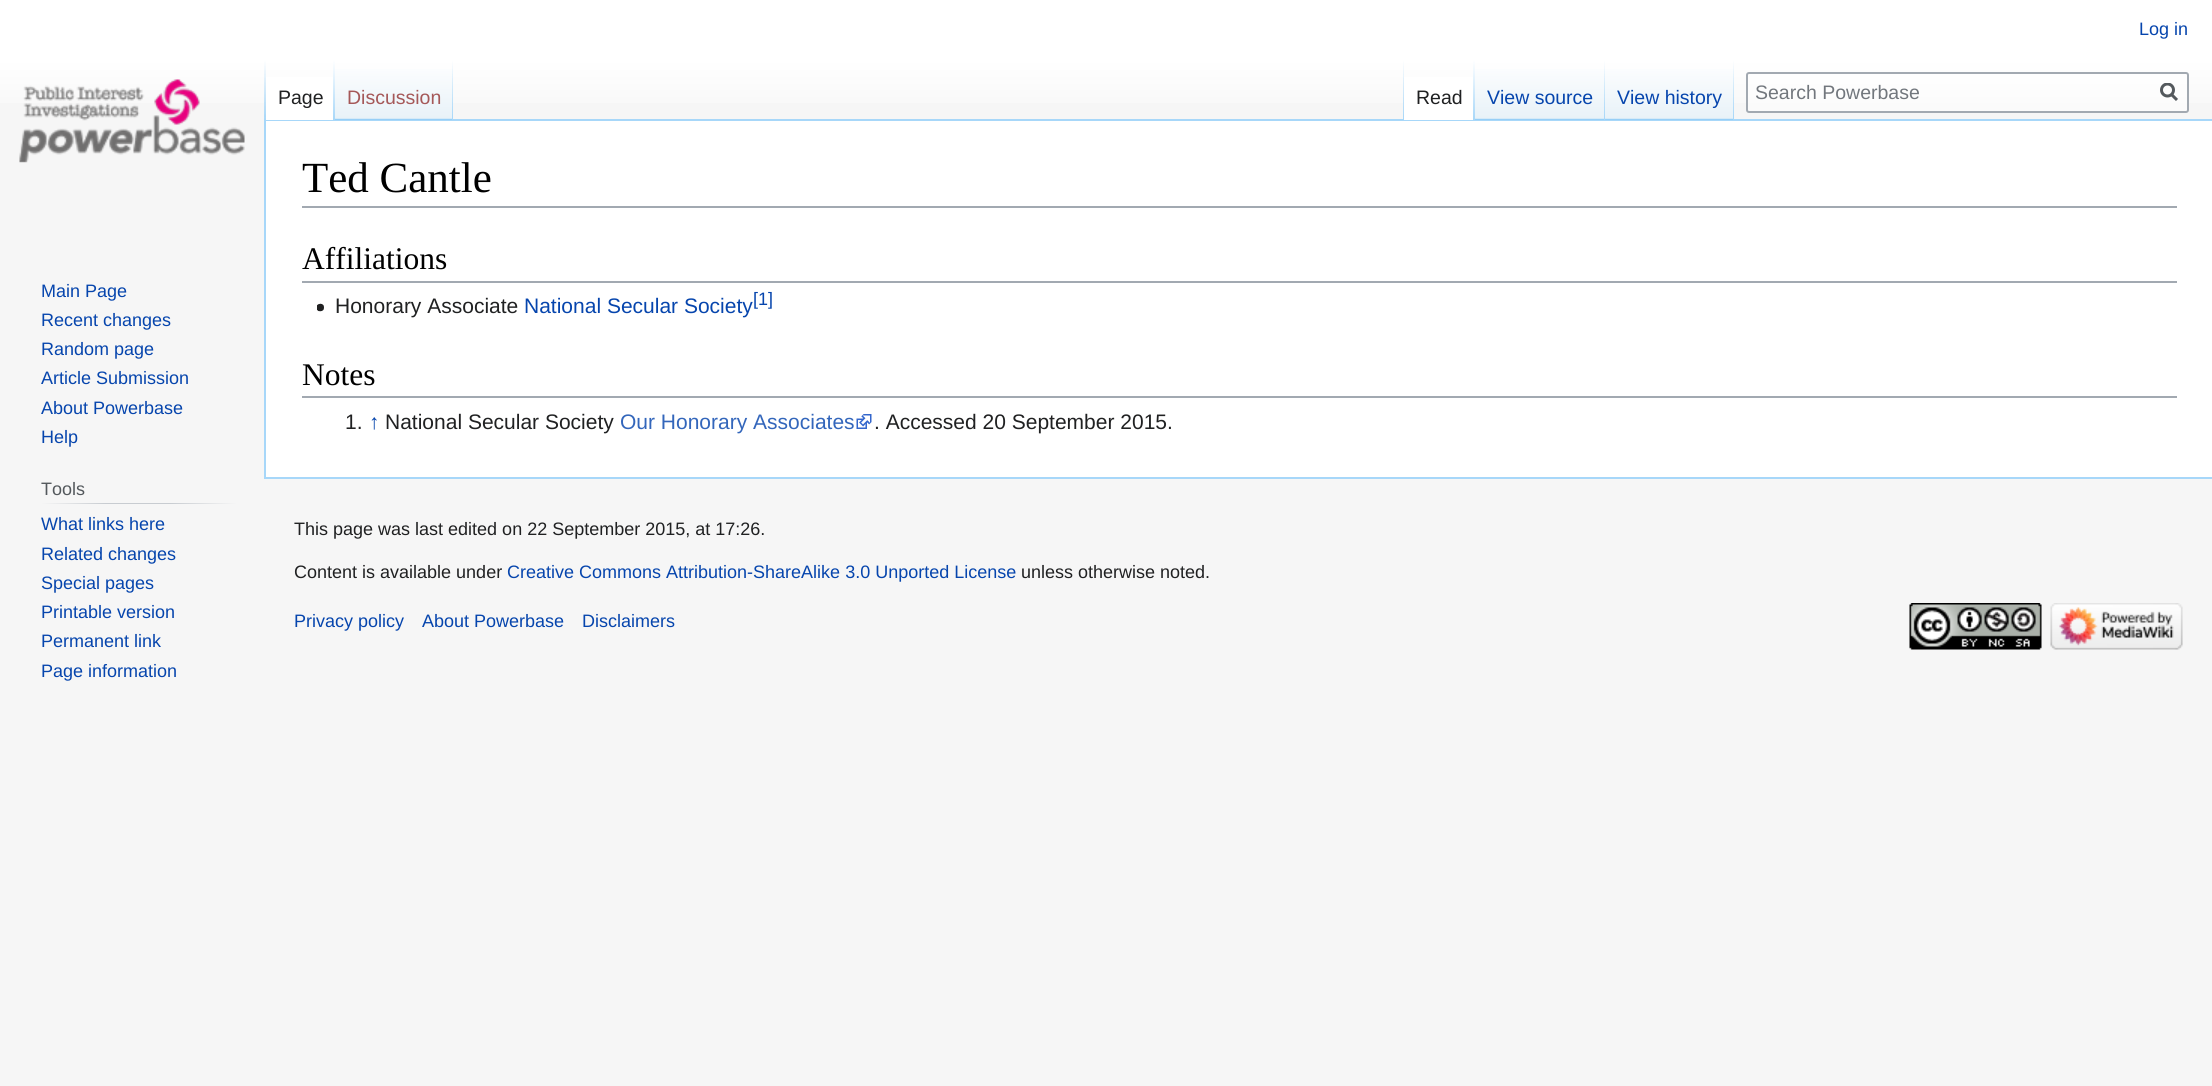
import math
import cairo

surface = cairo.ImageSurface(cairo.FORMAT_RGB24, 2212, 1086)
cr = cairo.Context(surface)
options = cairo.FontOptions()
options.set_hint_metrics(cairo.HINT_METRICS_OFF)
options.set_hint_style(cairo.HINT_STYLE_NONE)
cr.set_font_options(options)
cr.set_miter_limit(4)


def rgb(code):
    cr.set_source_rgb(*(v / 255 for v in bytes.fromhex(code[-6:])))


def rrect(x, y, w, h, r):
    cr.new_sub_path()
    for i, (u, v) in enumerate([(x + w - r, y + h - r), (x + r, y + h - r), (x + r, y + r), (x + w - r, y + r)]):
        cr.arc(u, v, r, i * math.pi / 2, (i + 1) * math.pi / 2)
    cr.close_path()


def image(path, x, y, w, h):
    cr.save()
    cr.set_source_surface(cairo.ImageSurface.create_from_png(path), x, y)
    cr.rectangle(x, y, w, h)
    cr.fill()
    cr.restore()


rgb("#f6f6f6")
cr.paint()
gradient = cairo.LinearGradient(1106, 0, 1106, 120)
gradient.add_color_stop_rgba(0.5, 1, 1, 1, 1)
gradient.add_color_stop_rgba(1, 0.965, 0.965, 0.965, 1)
cr.set_source(gradient)
cr.rectangle(0, 0, 2212, 103)
cr.fill()
for x, y, w, h, color in [
    (264, 119, 1948, 2, "#a7d7f9"),
    (264, 477, 1948, 2, "#a7d7f9"),
    (264, 119, 2, 360, "#a7d7f9"),
]:
    rgb(color)
    cr.rectangle(x, y, w, h)
    cr.fill()
gradient = cairo.LinearGradient(265, 60, 265, 120)
gradient.add_color_stop_rgba(0, 0.655, 0.843, 0.976, 0)
gradient.add_color_stop_rgba(1, 0.655, 0.843, 0.976, 1)
cr.set_source(gradient)
cr.rectangle(264, 60, 2, 60)
cr.fill()
rgb("#ffffff")
cr.rectangle(266, 77, 67, 43)
cr.fill()
gradient = cairo.LinearGradient(334, 60, 334, 120)
gradient.add_color_stop_rgba(0, 1, 1, 1, 1)
gradient.add_color_stop_rgba(1, 0.655, 0.843, 0.976, 1)
cr.set_source(gradient)
cr.rectangle(333, 60, 2, 60)
cr.fill()
gradient = cairo.LinearGradient(394, 120, 394, 60)
gradient.add_color_stop_rgba(0, 0.467, 0.757, 0.965, 1)
gradient.add_color_stop_rgba(0.03, 0.91, 0.949, 0.973, 1)
gradient.add_color_stop_rgba(1, 1, 1, 1, 1)
cr.set_source(gradient)
cr.rectangle(335, 69, 118, 51)
cr.fill()
gradient = cairo.LinearGradient(452, 60, 452, 120)
gradient.add_color_stop_rgba(0, 0.655, 0.843, 0.976, 0)
gradient.add_color_stop_rgba(1, 0.655, 0.843, 0.976, 1)
cr.set_source(gradient)
cr.rectangle(452, 60, 1, 60)
cr.fill()
gradient = cairo.LinearGradient(1403, 60, 1403, 120)
gradient.add_color_stop_rgba(0, 0.655, 0.843, 0.976, 0)
gradient.add_color_stop_rgba(1, 0.655, 0.843, 0.976, 1)
cr.set_source(gradient)
cr.rectangle(1403, 60, 1, 60)
cr.fill()
rgb("#ffffff")
cr.rectangle(1404, 77, 69, 43)
cr.fill()
gradient = cairo.LinearGradient(1474, 60, 1474, 120)
gradient.add_color_stop_rgba(0, 1, 1, 1, 1)
gradient.add_color_stop_rgba(1, 0.655, 0.843, 0.976, 1)
cr.set_source(gradient)
cr.rectangle(1473, 60, 2, 60)
cr.fill()
gradient = cairo.LinearGradient(1540, 120, 1540, 60)
gradient.add_color_stop_rgba(0, 0.467, 0.757, 0.965, 1)
gradient.add_color_stop_rgba(0.03, 0.91, 0.949, 0.973, 1)
gradient.add_color_stop_rgba(1, 1, 1, 1, 1)
cr.set_source(gradient)
cr.rectangle(1475, 69, 130, 51)
cr.fill()
gradient = cairo.LinearGradient(1604, 60, 1604, 120)
gradient.add_color_stop_rgba(0, 0.655, 0.843, 0.976, 0)
gradient.add_color_stop_rgba(1, 0.655, 0.843, 0.976, 1)
cr.set_source(gradient)
cr.rectangle(1604, 60, 1, 60)
cr.fill()
gradient = cairo.LinearGradient(1670, 120, 1670, 60)
gradient.add_color_stop_rgba(0, 0.467, 0.757, 0.965, 1)
gradient.add_color_stop_rgba(0.03, 0.91, 0.949, 0.973, 1)
gradient.add_color_stop_rgba(1, 1, 1, 1, 1)
cr.set_source(gradient)
cr.rectangle(1605, 69, 129, 51)
cr.fill()
gradient = cairo.LinearGradient(1733, 60, 1733, 120)
gradient.add_color_stop_rgba(0, 0.655, 0.843, 0.976, 0)
gradient.add_color_stop_rgba(1, 0.655, 0.843, 0.976, 1)
cr.set_source(gradient)
cr.rectangle(1733, 60, 1, 60)
cr.fill()
cr.set_source_rgba(1, 1, 1, 0.5)
rrect(1747, 73, 441, 39, 2)
cr.fill_preserve()
rgb("#a2a9b1")
cr.stroke()
cr.new_path()
cr.move_to(2177, 100)
cr.line_to(2171, 94)
rgb("#54595d")
cr.set_line_width(3)
cr.stroke()
cr.save()
cr.rectangle(2160, 83, 18, 19)
cr.clip()
cr.arc(2167.5, 90, 6, 0, 2 * math.pi)
cr.stroke()
cr.restore()
image("img/1.png", 19, 79, 226, 84)
gradient = cairo.LinearGradient(41, 503, 237, 503)
gradient.add_color_stop_rgba(0, 0.965, 0.965, 0.965, 1)
gradient.add_color_stop_rgba(0.33, 0.784, 0.8, 0.82, 1)
gradient.add_color_stop_rgba(0.66, 0.784, 0.8, 0.82, 1)
gradient.add_color_stop_rgba(1, 0.965, 0.965, 0.965, 1)
cr.set_source(gradient)
cr.rectangle(41, 503, 196, 1)
cr.fill()
for x, y, w, h, color in [
    (266, 121, 1946, 356, "#ffffff"),
    (302, 206, 1875, 2, "#a2a9b1"),
    (302, 281, 1875, 2, "#a2a9b1"),
]:
    rgb(color)
    cr.rectangle(x, y, w, h)
    cr.fill()
image("img/2.png", 317, 303, 7, 9)
cr.rectangle(302, 396, 1875, 2)
cr.fill()
image("img/3.png", 856, 414, 16, 15)
image("img/4.png", 1909, 603, 133, 47)
image("img/5.png", 2050, 603, 133, 47)
cr.select_font_face("Liberation Sans")
cr.set_font_size(18)
rgb("#0645ad")
cr.move_to(2139, 35)
cr.show_text("Log in")
cr.set_font_size(19.5)
rgb("#202122")
cr.move_to(278, 104)
cr.show_text("Page")
rgb("#a55858")
cr.move_to(347, 104)
cr.show_text("Discussion")
rgb("#202122")
cr.move_to(1416, 104)
cr.show_text("Read")
rgb("#0645ad")
cr.move_to(1487, 104)
cr.show_text("View source")
cr.move_to(1617, 104)
cr.show_text("View history")
rgb("#72777d")
cr.move_to(1755, 99)
cr.show_text("Search Powerbase")
cr.set_font_size(18)
rgb("#0645ad")
for x, y, s in [
    (41, 297, "Main Page"),
    (41, 326, "Recent changes"),
    (41, 355, "Random page"),
    (41, 384, "Article Submission"),
    (41, 414, "About Powerbase"),
    (41, 443, "Help"),
]:
    cr.move_to(x, y)
    cr.show_text(s)
rgb("#54595d")
cr.move_to(41, 495)
cr.show_text("Tools")
rgb("#0645ad")
for x, y, s in [
    (41, 530, "What links here"),
    (41, 560, "Related changes"),
    (41, 589, "Special pages"),
    (41, 618, "Printable version"),
    (41, 647, "Permanent link"),
    (41, 677, "Page information"),
]:
    cr.move_to(x, y)
    cr.show_text(s)
cr.select_font_face("Liberation Serif")
cr.set_font_size(43)
rgb("#000000")
cr.move_to(302, 192)
cr.show_text("Ted Cantle")
cr.set_font_size(31.5)
cr.move_to(302, 269)
cr.show_text("Affiliations")
cr.select_font_face("Liberation Sans")
cr.set_font_size(21)
rgb("#202122")
cr.move_to(335, 313)
cr.show_text("Honorary Associate")
rgb("#0645ad")
cr.move_to(524, 313)
cr.show_text("National Secular Society")
cr.set_font_size(18)
cr.move_to(753, 305)
cr.show_text("[1]")
cr.select_font_face("Liberation Serif")
cr.set_font_size(31.5)
rgb("#000000")
cr.move_to(302, 385)
cr.show_text("Notes")
cr.select_font_face("Liberation Sans")
cr.set_font_size(21)
rgb("#202122")
cr.move_to(345, 429)
cr.show_text("1.")
rgb("#0645ad")
cr.move_to(369, 429)
cr.show_text("↑")
rgb("#202122")
cr.move_to(385, 429)
cr.show_text("National Secular Society")
rgb("#3366bb")
cr.move_to(620, 429)
cr.show_text("Our Honorary Associates")
rgb("#202122")
cr.move_to(874, 429)
cr.show_text(". Accessed 20 September 2015.")
cr.set_font_size(18)
cr.move_to(294, 535)
cr.show_text("This page was last edited on 22 September 2015, at 17:26.")
cr.move_to(294, 578)
cr.show_text("Content is available under")
rgb("#0645ad")
cr.move_to(507, 578)
cr.show_text("Creative Commons Attribution-ShareAlike 3.0 Unported License")
rgb("#202122")
cr.move_to(1021, 578)
cr.show_text("unless otherwise noted.")
rgb("#0645ad")
for x, y, s in [
    (294, 627, "Privacy policy"),
    (422, 627, "About Powerbase"),
    (582, 627, "Disclaimers"),
]:
    cr.move_to(x, y)
    cr.show_text(s)
surface.write_to_png("page.png")
